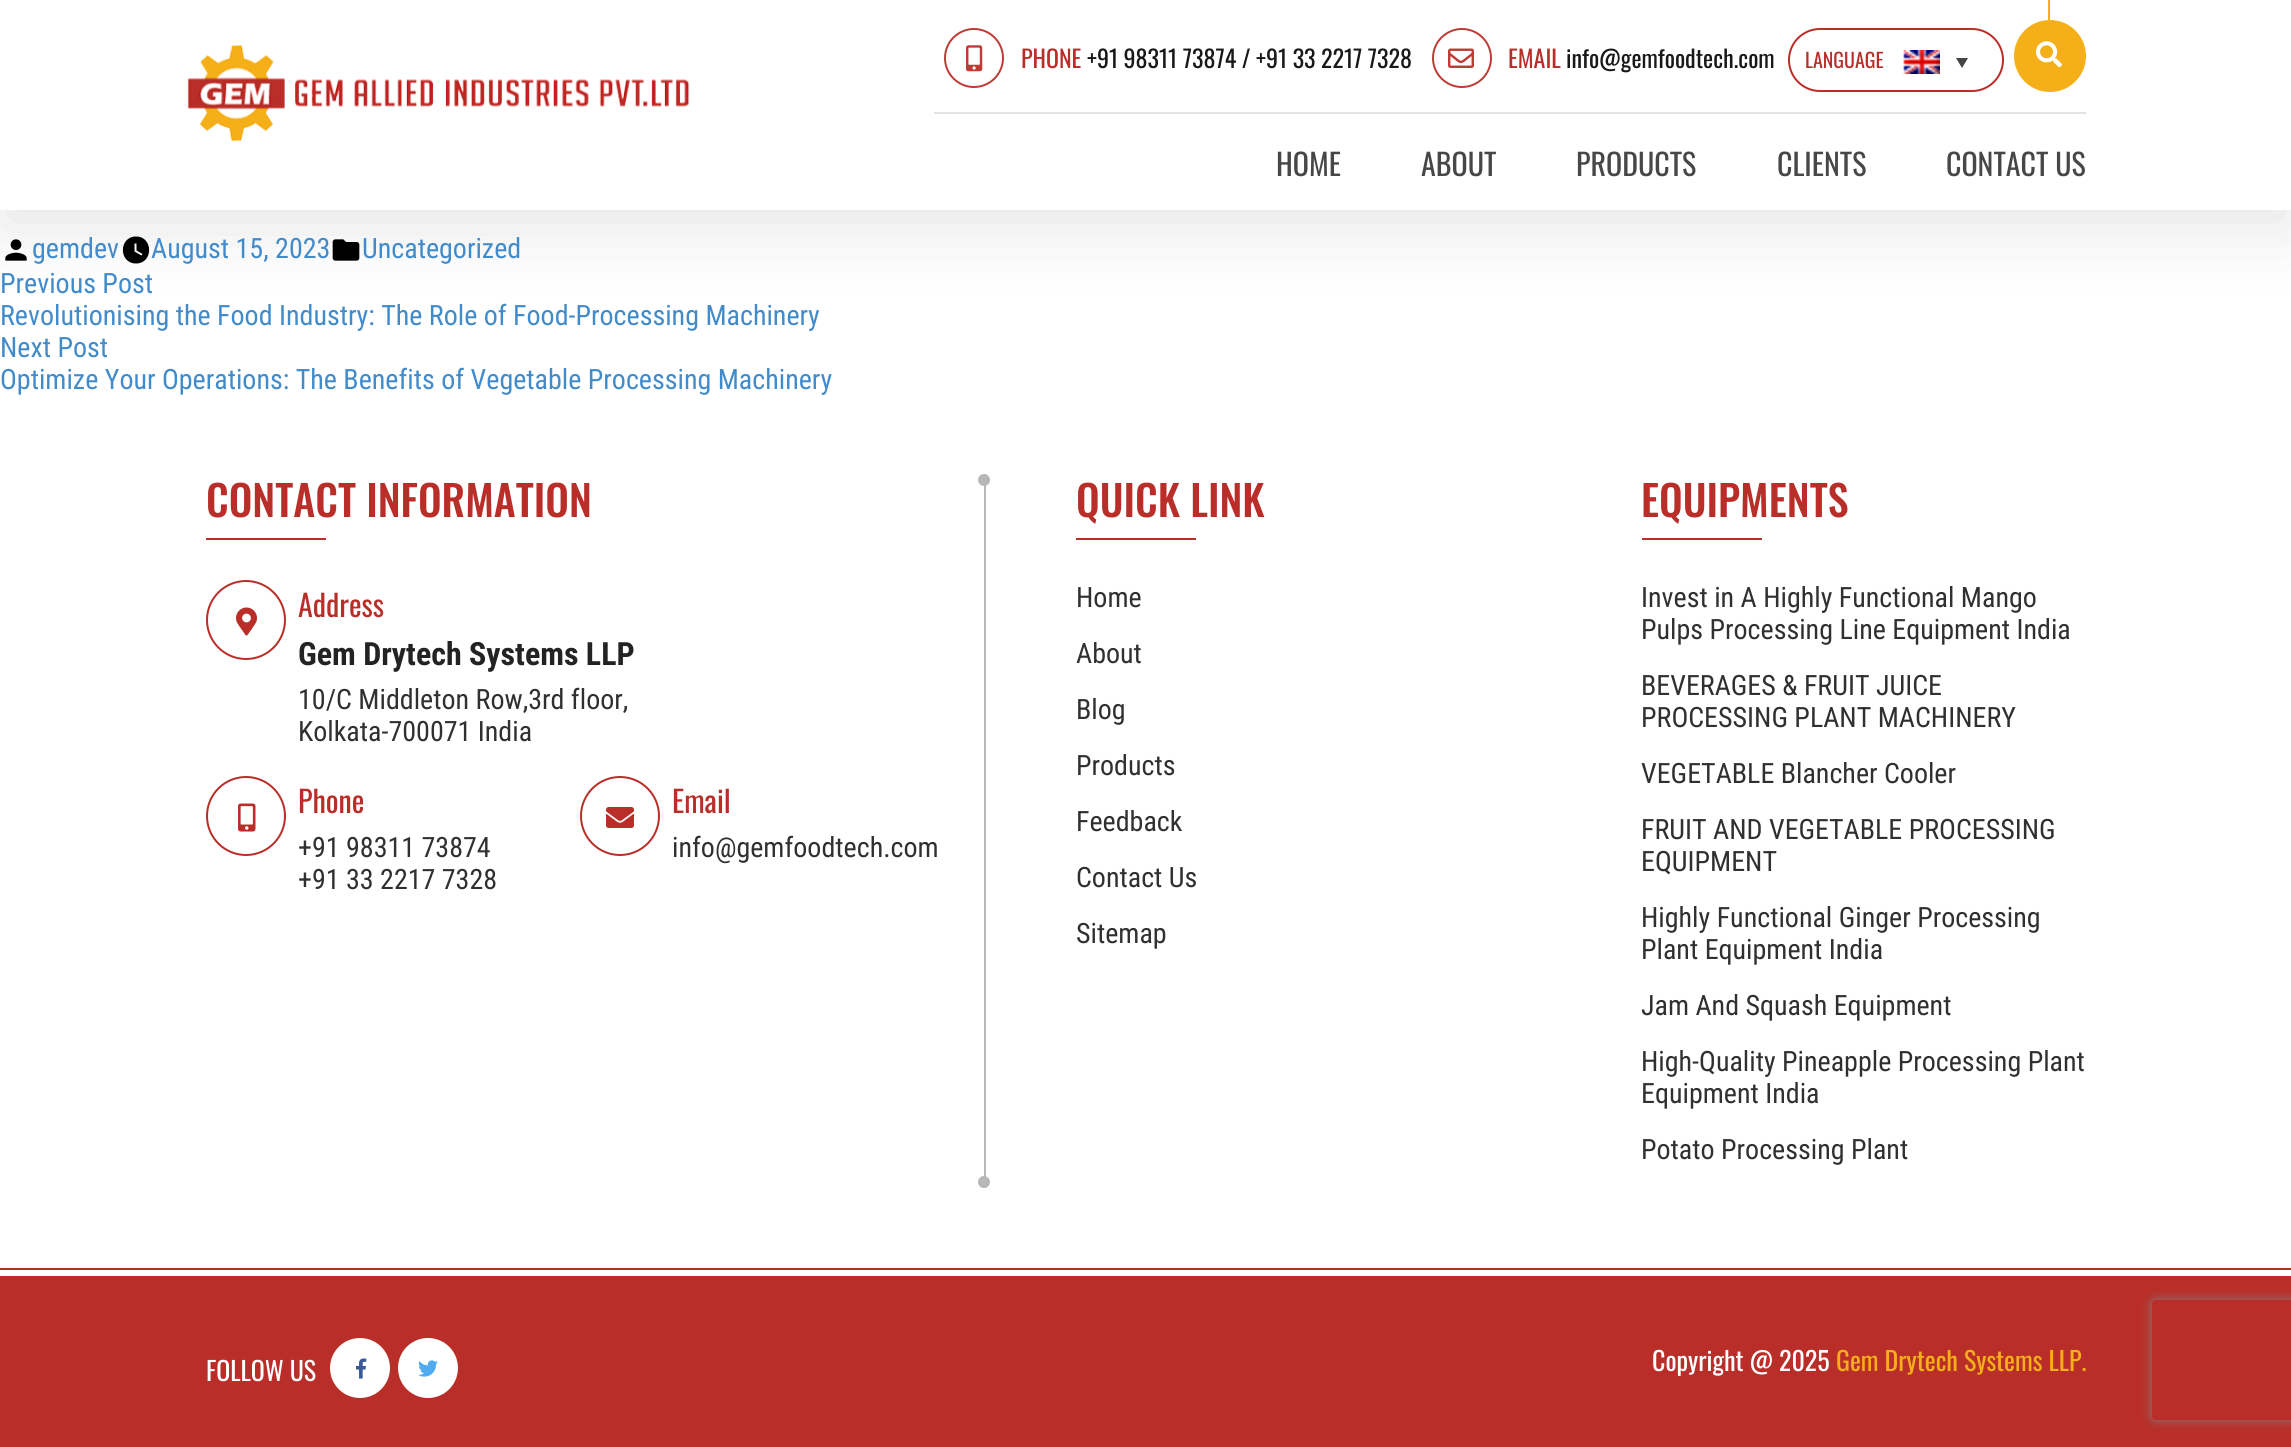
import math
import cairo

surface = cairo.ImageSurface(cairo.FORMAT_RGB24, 2291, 1447)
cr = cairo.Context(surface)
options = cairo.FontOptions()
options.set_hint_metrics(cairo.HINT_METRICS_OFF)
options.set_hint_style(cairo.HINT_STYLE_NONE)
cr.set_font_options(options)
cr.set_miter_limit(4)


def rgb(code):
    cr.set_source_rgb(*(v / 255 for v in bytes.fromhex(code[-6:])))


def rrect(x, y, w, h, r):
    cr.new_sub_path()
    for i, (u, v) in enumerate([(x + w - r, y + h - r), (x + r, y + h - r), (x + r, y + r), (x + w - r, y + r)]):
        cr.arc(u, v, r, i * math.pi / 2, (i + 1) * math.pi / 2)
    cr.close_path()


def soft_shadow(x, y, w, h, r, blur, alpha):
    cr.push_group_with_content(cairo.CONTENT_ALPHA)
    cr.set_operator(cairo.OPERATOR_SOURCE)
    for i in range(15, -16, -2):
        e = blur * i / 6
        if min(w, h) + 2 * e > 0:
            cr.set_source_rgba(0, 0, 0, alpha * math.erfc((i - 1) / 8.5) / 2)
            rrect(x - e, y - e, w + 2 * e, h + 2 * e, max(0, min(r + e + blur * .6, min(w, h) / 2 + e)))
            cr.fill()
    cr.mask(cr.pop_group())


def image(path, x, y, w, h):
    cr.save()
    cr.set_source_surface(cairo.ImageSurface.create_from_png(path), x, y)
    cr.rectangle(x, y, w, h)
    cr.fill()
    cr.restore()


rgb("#ffffff")
cr.paint()
image("img/6.png", 5, 239, 22, 22)
rgb("#000000")
cr.new_path()
cr.move_to(136, 236.5)
cr.curve_to(118.5, 236.5, 118.5, 263.5, 136, 263.5)
cr.curve_to(153.5, 263.5, 153.5, 236.5, 136, 236.5)
cr.close_path()
cr.move_to(141.5, 255.5)
cr.line_to(134.5, 251.5)
cr.line_to(134.5, 243.5)
cr.line_to(136.5, 243.5)
cr.line_to(136.5, 250.5)
cr.line_to(142.5, 254)
cr.close_path()
cr.fill()
image("img/7.png", 332, 239, 28, 22)
rgb("#000000")
soft_shadow(0, 20, 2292, 210, 0, 36, 0.1)
rgb("#ffffff")
cr.rectangle(0, 0, 2291, 210)
cr.fill()
image("img/1.png", 187, 45, 503, 97)
rgb("#e4e4e4")
cr.rectangle(934, 112, 1152, 2)
cr.fill()
cr.arc(974, 58, 29, 0, 2 * math.pi)
rgb("#be3c36")
cr.stroke()
image("img/2.png", 966, 45, 17, 27)
cr.arc(1462, 58, 29, 0, 2 * math.pi)
cr.stroke()
image("img/3.png", 1448, 48, 26, 20)
rrect(1789, 29, 214, 62, 31)
rgb("#b92e28")
cr.stroke()
image("img/4.png", 1903, 50, 37, 24)
rgb("#444444")
cr.new_path()
cr.move_to(1956, 58)
cr.line_to(1968, 58)
cr.line_to(1962, 68)
cr.close_path()
cr.fill()
rgb("#f5af19")
cr.arc(2050, 56, 36, 0, 2 * math.pi)
cr.fill()
cr.rectangle(2048, 0, 2, 20)
cr.fill()
image("img/5.png", 2036, 41, 26, 27)
rgb("#b92e28")
cr.rectangle(206, 538, 120, 2)
cr.fill()
cr.arc(246, 620, 39, 0, 2 * math.pi)
cr.stroke()
image("img/8.png", 236, 607, 21, 29)
cr.arc(246, 816, 39, 0, 2 * math.pi)
cr.stroke()
image("img/9.png", 238, 803, 18, 29)
cr.arc(620, 816, 39, 0, 2 * math.pi)
cr.stroke()
image("img/10.png", 606, 807, 28, 21)
rgb("#b7b7b7")
cr.rectangle(984, 474, 2, 714)
cr.fill()
cr.arc(984, 480, 6, 0, 2 * math.pi)
cr.fill()
rgb("#b92e28")
cr.rectangle(1076, 538, 120, 2)
cr.fill()
cr.rectangle(1642, 538, 120, 2)
cr.fill()
rgb("#b7b7b7")
cr.arc(984, 1182, 6, 0, 2 * math.pi)
cr.fill()
rgb("#b92e28")
cr.rectangle(0, 1268, 2291, 179)
cr.fill()
rgb("#ffffff")
cr.rectangle(0, 1270, 2291, 6)
cr.fill()
cr.arc(360, 1368, 30, 0, 2 * math.pi)
cr.fill()
image("img/11.png", 356, 1358, 11, 21)
cr.arc(428, 1368, 30, 0, 2 * math.pi)
cr.fill()
image("img/12.png", 418, 1360, 20, 17)
cr.save()
cr.set_fill_rule(cairo.FILL_RULE_EVEN_ODD)
cr.new_path()
cr.move_to(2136, 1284)
cr.line_to(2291, 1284)
cr.line_to(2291, 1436)
cr.line_to(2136, 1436)
cr.close_path()
cr.move_to(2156, 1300)
cr.line_to(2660, 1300)
cr.curve_to(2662, 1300, 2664, 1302, 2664, 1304)
cr.line_to(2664, 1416)
cr.curve_to(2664, 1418, 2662, 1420, 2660, 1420)
cr.line_to(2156, 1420)
cr.curve_to(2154, 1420, 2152, 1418, 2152, 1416)
cr.line_to(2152, 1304)
cr.curve_to(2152, 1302, 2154, 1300, 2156, 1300)
cr.close_path()
cr.clip()
rgb("#808080")
soft_shadow(2152, 1300, 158, 120, 4, 5, 1)
cr.restore()
cr.select_font_face("Oswald")
cr.set_font_size(24)
rgb("#b92e28")
cr.move_to(1021, 68)
cr.show_text("PHONE")
rgb("#191919")
cr.move_to(1087, 68)
cr.show_text("+91 98311 73874 / +91 33 2217 7328")
rgb("#b92e28")
cr.move_to(1508, 68)
cr.show_text("EMAIL")
rgb("#191919")
cr.move_to(1566, 68)
cr.show_text("info@gemfoodtech.com")
cr.set_font_size(20)
rgb("#b92e28")
cr.move_to(1805, 68)
cr.show_text("LANGUAGE")
cr.set_font_size(30)
rgb("#474747")
for x, y, s in [
    (1276, 176, "HOME"),
    (1421, 176, "ABOUT"),
    (1576, 176, "PRODUCTS"),
    (1777, 176, "CLIENTS"),
    (1946, 176, "CONTACT US"),
]:
    cr.move_to(x, y)
    cr.show_text(s)
cr.select_font_face("Roboto Condensed")
cr.set_font_size(28)
rgb("#428bca")
for x, y, s in [
    (32, 258, "gemdev"),
    (151, 258, "August 15, 2023"),
    (362, 258, "Uncategorized"),
    (0, 293, "Previous Post"),
    (0, 325, "Revolutionising the Food Industry: The Role of Food-Processing Machinery"),
    (0, 357, "Next Post"),
    (0, 389, "Optimize Your Operations: The Benefits of Vegetable Processing Machinery"),
]:
    cr.move_to(x, y)
    cr.show_text(s)
cr.select_font_face("Oswald Medium")
cr.set_font_size(42)
rgb("#b92e28")
cr.move_to(206, 517)
cr.show_text("CONTACT INFORMATION")
cr.select_font_face("Oswald")
cr.set_font_size(30)
cr.move_to(298, 617)
cr.show_text("Address")
cr.select_font_face("Roboto Condensed", cairo.FONT_SLANT_NORMAL, cairo.FONT_WEIGHT_BOLD)
cr.set_font_size(32)
rgb("#232323")
cr.move_to(298, 665)
cr.show_text("Gem Drytech Systems LLP")
cr.select_font_face("Roboto Condensed")
cr.set_font_size(28)
rgb("#303030")
cr.move_to(298, 709)
cr.show_text("10/C Middleton Row,3rd floor,")
cr.move_to(298, 741)
cr.show_text("Kolkata-700071 India")
cr.select_font_face("Oswald")
cr.set_font_size(30)
rgb("#b92e28")
cr.move_to(298, 813)
cr.show_text("Phone")
cr.select_font_face("Roboto Condensed")
cr.set_font_size(28)
rgb("#303030")
cr.move_to(298, 857)
cr.show_text("+91 98311 73874")
cr.move_to(298, 889)
cr.show_text("+91 33 2217 7328")
cr.select_font_face("Oswald")
cr.set_font_size(30)
rgb("#b92e28")
cr.move_to(672, 813)
cr.show_text("Email")
cr.select_font_face("Roboto Condensed")
cr.set_font_size(28)
rgb("#303030")
cr.move_to(672, 857)
cr.show_text("info@gemfoodtech.com")
cr.select_font_face("Oswald Medium")
cr.set_font_size(42)
rgb("#b92e28")
cr.move_to(1076, 517)
cr.show_text("QUICK LINK")
cr.select_font_face("Roboto Condensed")
cr.set_font_size(28)
rgb("#303030")
for x, y, s in [
    (1076, 607, "Home"),
    (1076, 663, "About"),
    (1076, 719, "Blog"),
    (1076, 775, "Products"),
    (1076, 831, "Feedback"),
    (1076, 887, "Contact Us"),
    (1076, 943, "Sitemap"),
]:
    cr.move_to(x, y)
    cr.show_text(s)
cr.select_font_face("Oswald Medium")
cr.set_font_size(42)
rgb("#b92e28")
cr.move_to(1641, 517)
cr.show_text("EQUIPMENTS")
cr.select_font_face("Roboto Condensed")
cr.set_font_size(28)
rgb("#303030")
for x, y, s in [
    (1641, 607, "Invest in A Highly Functional Mango"),
    (1641, 639, "Pulps Processing Line Equipment India"),
    (1641, 695, "BEVERAGES & FRUIT JUICE"),
    (1641, 727, "PROCESSING PLANT MACHINERY"),
    (1641, 783, "VEGETABLE Blancher Cooler"),
    (1641, 839, "FRUIT AND VEGETABLE PROCESSING"),
    (1641, 871, "EQUIPMENT"),
    (1641, 927, "Highly Functional Ginger Processing"),
    (1641, 959, "Plant Equipment India"),
    (1641, 1015, "Jam And Squash Equipment"),
    (1641, 1071, "High-Quality Pineapple Processing Plant"),
    (1641, 1103, "Equipment India"),
    (1641, 1159, "Potato Processing Plant"),
]:
    cr.move_to(x, y)
    cr.show_text(s)
cr.select_font_face("Oswald")
cr.set_font_size(26)
rgb("#ffffff")
cr.move_to(206, 1381)
cr.show_text("FOLLOW US")
cr.move_to(1652, 1371)
cr.show_text("Copyright @ 2025")
rgb("#f5af19")
cr.move_to(1836, 1371)
cr.show_text("Gem Drytech Systems LLP.")
surface.write_to_png("page.png")
